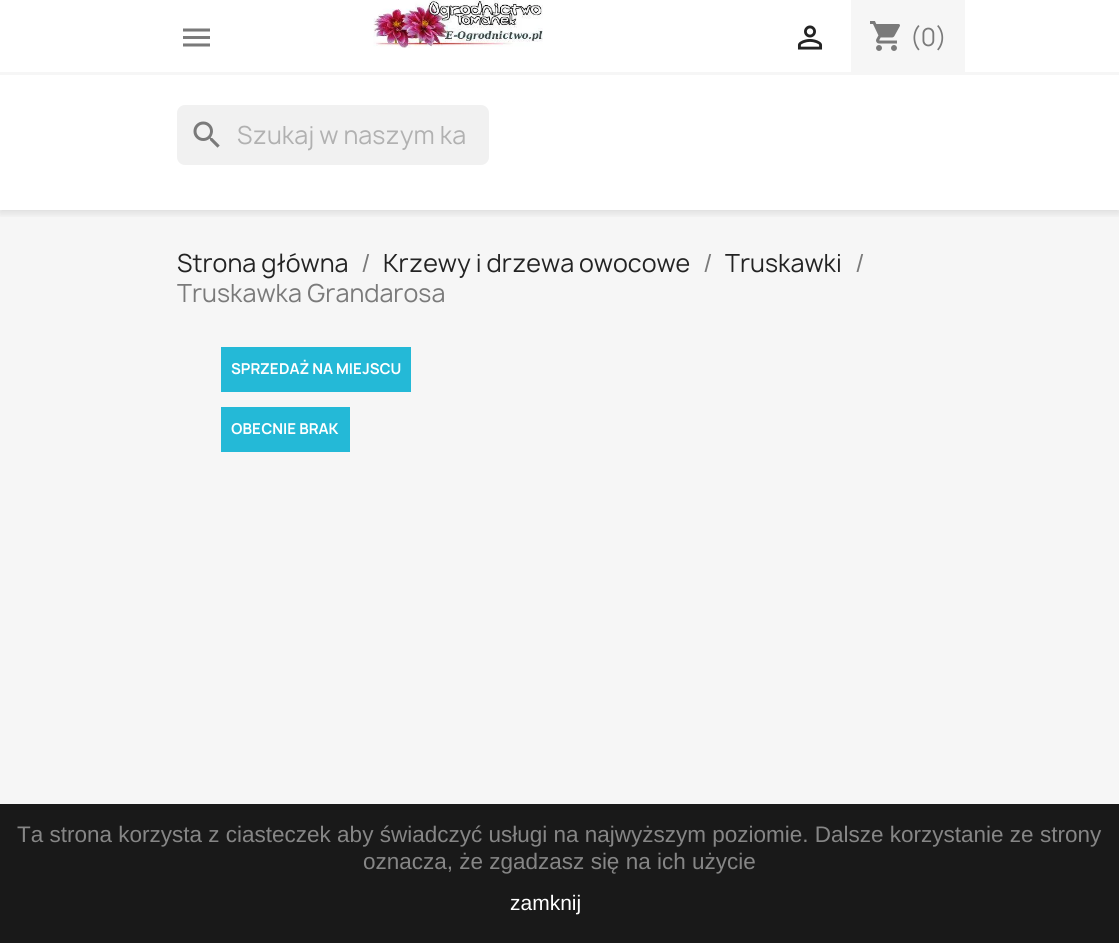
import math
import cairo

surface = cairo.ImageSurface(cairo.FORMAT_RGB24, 1119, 943)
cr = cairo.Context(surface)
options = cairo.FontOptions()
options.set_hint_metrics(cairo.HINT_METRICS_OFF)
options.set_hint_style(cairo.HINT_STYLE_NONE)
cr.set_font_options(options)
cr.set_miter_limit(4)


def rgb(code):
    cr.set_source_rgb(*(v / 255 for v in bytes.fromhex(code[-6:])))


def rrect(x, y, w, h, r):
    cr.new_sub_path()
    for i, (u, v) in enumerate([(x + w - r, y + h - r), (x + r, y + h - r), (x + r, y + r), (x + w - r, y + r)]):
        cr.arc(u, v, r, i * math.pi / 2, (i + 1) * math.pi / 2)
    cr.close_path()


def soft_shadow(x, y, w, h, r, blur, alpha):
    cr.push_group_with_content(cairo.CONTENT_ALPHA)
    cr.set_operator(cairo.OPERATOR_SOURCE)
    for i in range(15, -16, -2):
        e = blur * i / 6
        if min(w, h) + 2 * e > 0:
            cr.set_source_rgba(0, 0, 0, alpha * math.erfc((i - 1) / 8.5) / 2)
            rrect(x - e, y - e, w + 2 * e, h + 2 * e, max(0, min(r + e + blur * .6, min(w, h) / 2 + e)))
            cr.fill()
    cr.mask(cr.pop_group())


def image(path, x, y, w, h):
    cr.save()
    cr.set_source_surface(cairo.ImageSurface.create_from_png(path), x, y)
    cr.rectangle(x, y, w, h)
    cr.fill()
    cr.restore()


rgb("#ffffff")
cr.paint()
rgb("#f6f6f6")
cr.rectangle(0, 210, 1119, 594)
cr.fill()
cr.save()
cr.rectangle(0, 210, 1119, 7)
cr.clip()
rgb("#000000")
soft_shadow(0, 3, 1119, 210, 0, 4, 0.11)
cr.restore()
cr.rectangle(0, 72, 1119, 3)
cr.fill()
image("img/1.png", 183, 28, 27, 19)
image("img/2.png", 373, 0, 170, 48)
image("img/3.png", 797, 25, 26, 25)
cr.rectangle(851, 0, 114, 72)
cr.fill()
image("img/4.png", 870, 21, 30, 30)
rgb("#f1f1f1")
rrect(177, 105, 312, 60, 8)
cr.fill()
image("img/5.png", 193, 121, 27, 27)
for x, y, w, h, color in [
    (221, 347, 190, 45, "#24b9d7"),
    (221, 407, 129, 45, "#24b9d7"),
    (0, 804, 1119, 139, "#191919"),
]:
    rgb(color)
    cr.rectangle(x, y, w, h)
    cr.fill()
cr.select_font_face("Manrope")
cr.set_font_size(24)
rgb("#7a7a7a")
cr.move_to(910, 46)
cr.show_text("(0)")
rgb("#b1b1b1")
cr.move_to(237, 144)
cr.show_text("Szukaj w naszym ka")
rgb("#232323")
cr.move_to(177, 272)
cr.show_text("Strona główna")
rgb("#7a7a7a")
cr.move_to(361, 272)
cr.show_text("/")
rgb("#232323")
cr.move_to(383, 272)
cr.show_text("Krzewy i drzewa owocowe")
rgb("#7a7a7a")
cr.move_to(703, 272)
cr.show_text("/")
rgb("#232323")
cr.move_to(725, 272)
cr.show_text("Truskawki")
rgb("#7a7a7a")
cr.move_to(855, 272)
cr.show_text("/")
cr.move_to(177, 302)
cr.show_text("Truskawka Grandarosa")
cr.select_font_face("Manrope", cairo.FONT_SLANT_NORMAL, cairo.FONT_WEIGHT_BOLD)
cr.set_font_size(14.4)
rgb("#ffffff")
cr.move_to(231, 374)
cr.show_text("SPRZEDAŻ NA MIEJSCU")
cr.move_to(231, 434)
cr.show_text("OBECNIE BRAK")
cr.select_font_face("Liberation Sans")
cr.set_font_size(22.5)
rgb("#868686")
cr.move_to(17, 842)
cr.show_text("Ta strona korzysta z ciasteczek aby świadczyć usługi na najwyższym poziomie. Dalsze korzystanie ze strony")
cr.move_to(363, 869)
cr.show_text("oznacza, że zgadzasz się na ich użycie")
cr.set_font_size(21)
rgb("#ffffff")
cr.move_to(510, 910)
cr.show_text("zamknij")
surface.write_to_png("page.png")
